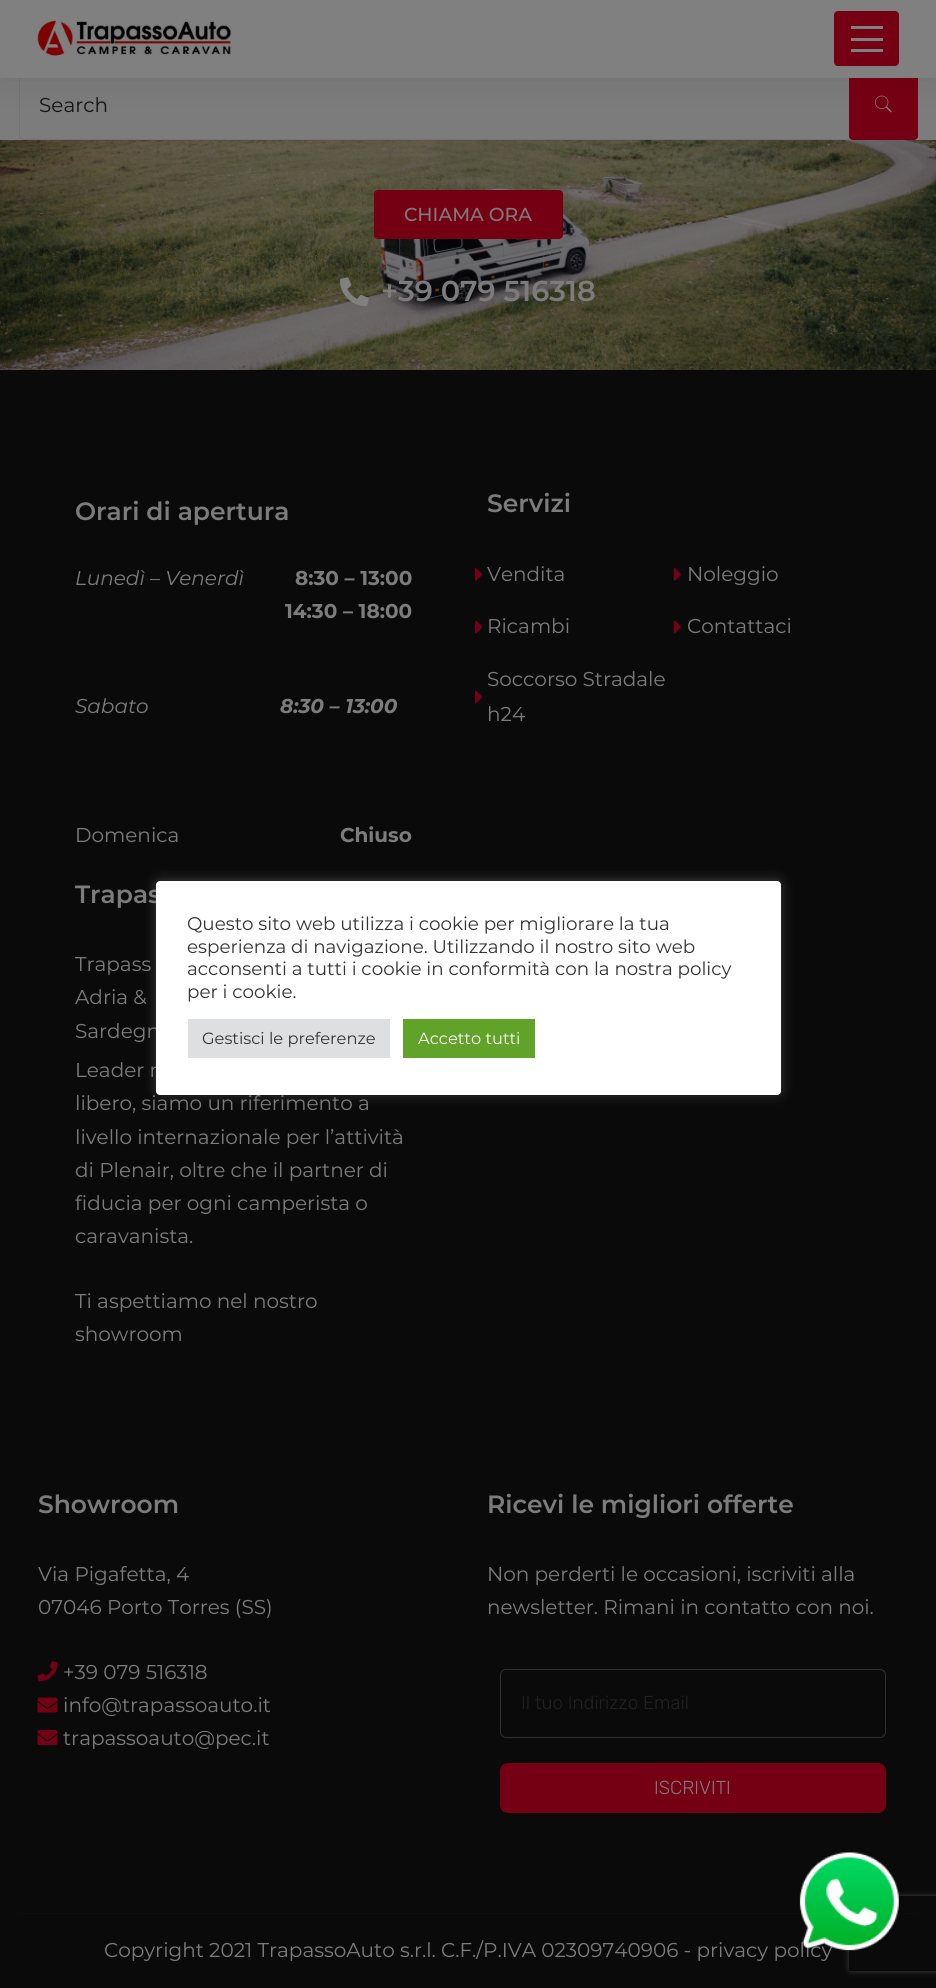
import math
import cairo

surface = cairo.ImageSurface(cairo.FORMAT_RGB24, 936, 1988)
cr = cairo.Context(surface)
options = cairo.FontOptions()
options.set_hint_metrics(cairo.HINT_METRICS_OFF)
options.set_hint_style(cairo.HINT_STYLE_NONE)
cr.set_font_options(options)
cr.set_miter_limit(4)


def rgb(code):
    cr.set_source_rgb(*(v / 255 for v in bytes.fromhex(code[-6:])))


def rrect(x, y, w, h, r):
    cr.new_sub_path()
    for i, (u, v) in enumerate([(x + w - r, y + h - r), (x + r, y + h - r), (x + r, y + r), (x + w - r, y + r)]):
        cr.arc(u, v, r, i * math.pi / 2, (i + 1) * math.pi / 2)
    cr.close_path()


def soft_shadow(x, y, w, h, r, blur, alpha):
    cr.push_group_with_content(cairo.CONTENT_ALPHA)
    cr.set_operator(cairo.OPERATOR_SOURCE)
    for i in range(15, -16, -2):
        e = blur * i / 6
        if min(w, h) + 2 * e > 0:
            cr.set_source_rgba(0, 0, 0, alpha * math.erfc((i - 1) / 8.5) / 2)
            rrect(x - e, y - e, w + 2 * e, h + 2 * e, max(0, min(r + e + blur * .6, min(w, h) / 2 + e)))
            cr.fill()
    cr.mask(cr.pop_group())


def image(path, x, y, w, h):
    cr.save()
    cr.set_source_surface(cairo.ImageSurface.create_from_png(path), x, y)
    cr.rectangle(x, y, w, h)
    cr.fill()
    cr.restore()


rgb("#7c7c7c")
cr.paint()
rrect(19.5, 71.5, 898, 68, 3.5)
rgb("#727375")
cr.set_line_width(1)
cr.stroke()
rgb("#760013")
rrect(849, 71, 69, 69, 4)
cr.fill()
image("img/2.png", 875, 95, 17, 18)
rgb("#000000")
soft_shadow(0, 0, 936, 78, 0, 19, 0.1)
rgb("#808080")
cr.rectangle(0, 0, 936, 78)
cr.fill()
image("img/1.png", 37, 20, 195, 36)
rgb("#760013")
rrect(834.5, 11.5, 64, 54, 3.5)
cr.fill_preserve()
cr.stroke()
for x, y, w, h, color in [
    (851, 26, 32, 3, "#808080"),
    (851, 38, 32, 3, "#808080"),
    (851, 49, 32, 3, "#808080"),
    (0, 370, 936, 1618, "#0a0a0a"),
]:
    rgb(color)
    cr.rectangle(x, y, w, h)
    cr.fill()
image("img/3.png", 0, 140, 936, 230)
rgb("#760013")
rrect(374, 190, 189, 49, 4)
cr.fill()
image("img/4.png", 340, 277, 29, 29)
image("img/5.png", 475, 568, 8, 13)
image("img/6.png", 673, 568, 8, 13)
image("img/7.png", 475, 620, 8, 14)
image("img/8.png", 673, 620, 8, 14)
image("img/7.png", 475, 690, 8, 14)
image("img/9.png", 37, 1661, 21, 21)
image("img/10.png", 37, 1697, 21, 16)
image("img/11.png", 37, 1730, 21, 15)
rrect(500.5, 1669.5, 385, 68, 5.5)
rgb("#303030")
cr.stroke()
rgb("#760013")
rrect(500, 1763, 386, 50, 8)
cr.fill()
rgb("#0d0d0f")
cr.rectangle(19, 1913, 899, 1)
cr.fill()
rgb("#acabab")
soft_shadow(156, 880, 625, 214, 4, 6, 0.3)
cr.save()
cr.set_fill_rule(cairo.FILL_RULE_EVEN_ODD)
cr.new_path()
cr.move_to(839, 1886)
cr.line_to(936, 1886)
cr.line_to(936, 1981)
cr.line_to(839, 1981)
cr.close_path()
cr.move_to(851.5, 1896)
cr.line_to(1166.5, 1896)
cr.curve_to(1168, 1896, 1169, 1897, 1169, 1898.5)
cr.line_to(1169, 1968.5)
cr.curve_to(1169, 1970, 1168, 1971, 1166.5, 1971)
cr.line_to(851.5, 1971)
cr.curve_to(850, 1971, 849, 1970, 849, 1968.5)
cr.line_to(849, 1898.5)
cr.curve_to(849, 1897, 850, 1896, 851.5, 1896)
cr.close_path()
cr.clip()
rgb("#404040")
soft_shadow(849, 1896, 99, 75, 2.5, 3, 1)
cr.restore()
cr.select_font_face("Montserrat")
cr.set_font_size(20)
rgb("#141414")
cr.move_to(39, 112)
cr.show_text("Search")
cr.select_font_face("Montserrat Medium")
cr.set_font_size(18.75)
rgb("#7c7c7d")
cr.move_to(404, 221)
cr.show_text("CHIAMA ORA")
cr.select_font_face("Montserrat SemiBold")
cr.set_font_size(28.75)
cr.move_to(381, 301)
cr.show_text("+39 079 516318")
cr.set_font_size(25)
cr.move_to(75, 520)
cr.show_text("Orari di apertura")
cr.select_font_face("Montserrat", cairo.FONT_SLANT_ITALIC)
cr.set_font_size(20)
cr.move_to(75, 585)
cr.show_text("Lunedì – Venerdì")
cr.select_font_face("Montserrat", cairo.FONT_SLANT_NORMAL, cairo.FONT_WEIGHT_BOLD)
cr.move_to(295, 585)
cr.show_text("8:30 – 13:00")
cr.move_to(285, 618)
cr.show_text("14:30 – 18:00")
cr.select_font_face("Montserrat", cairo.FONT_SLANT_ITALIC)
cr.move_to(75, 713)
cr.show_text("Sabato")
cr.select_font_face("Montserrat", cairo.FONT_SLANT_ITALIC, cairo.FONT_WEIGHT_BOLD)
cr.move_to(280, 713)
cr.show_text("8:30 – 13:00")
cr.select_font_face("Montserrat")
cr.move_to(75, 842)
cr.show_text("Domenica")
cr.select_font_face("Montserrat", cairo.FONT_SLANT_NORMAL, cairo.FONT_WEIGHT_BOLD)
cr.move_to(340, 842)
cr.show_text("Chiuso")
cr.select_font_face("Montserrat SemiBold")
cr.set_font_size(25)
cr.move_to(75, 903)
cr.show_text("Trapas")
cr.select_font_face("Montserrat")
cr.set_font_size(20)
for x, y, s in [
    (75, 971, "Trapass"),
    (75, 1004, "Adria &"),
    (75, 1038, "Sardegn"),
    (75, 1077, "Leader n"),
    (75, 1110, "libero, siamo un riferimento a"),
    (75, 1144, "livello internazionale per l’attività"),
    (75, 1177, "di Plenair, oltre che il partner di"),
    (75, 1210, "fiducia per ogni camperista o"),
    (75, 1243, "caravanista."),
    (75, 1308, "Ti aspettiamo nel nostro"),
    (75, 1341, "showroom"),
]:
    cr.move_to(x, y)
    cr.show_text(s)
cr.select_font_face("Montserrat SemiBold")
cr.set_font_size(25)
cr.move_to(487, 512)
cr.show_text("Servizi")
cr.select_font_face("Montserrat")
cr.set_font_size(20)
for x, y, s in [
    (487, 581, "Vendita"),
    (687, 581, "Noleggio"),
    (487, 633, "Ricambi"),
    (687, 633, "Contattaci"),
    (487, 686, "Soccorso Stradale"),
    (487, 721, "h24"),
]:
    cr.move_to(x, y)
    cr.show_text(s)
cr.select_font_face("Montserrat SemiBold")
cr.set_font_size(25)
cr.move_to(38, 1513)
cr.show_text("Showroom")
cr.select_font_face("Montserrat")
cr.set_font_size(20)
for x, y, s in [
    (38, 1581, "Via Pigafetta, 4"),
    (38, 1614, "07046 Porto Torres (SS)"),
    (63, 1679, "+39 079 516318"),
    (63, 1712, "info@trapassoauto.it"),
    (63, 1745, "trapassoauto@pec.it"),
]:
    cr.move_to(x, y)
    cr.show_text(s)
cr.select_font_face("Montserrat SemiBold")
cr.set_font_size(25)
cr.move_to(487, 1513)
cr.show_text("Ricevi le migliori offerte")
cr.select_font_face("Montserrat")
cr.set_font_size(20)
cr.move_to(487, 1581)
cr.show_text("Non perderti le occasioni, iscriviti alla")
cr.move_to(487, 1614)
cr.show_text("newsletter. Rimani in contatto con noi.")
cr.select_font_face("Rubik Light")
cr.set_font_size(18.75)
rgb("#212121")
cr.move_to(521, 1709)
cr.show_text("Il tuo Indirizzo Email")
rgb("#7c7c7d")
cr.move_to(654, 1794)
cr.show_text("ISCRIVITI")
cr.select_font_face("Montserrat")
cr.set_font_size(20)
cr.move_to(104, 1957)
cr.show_text("Copyright 2021 TrapassoAuto s.r.l. C.F./P.IVA 02309740906 - privacy policy")
rgb("#ffffff")
rrect(156, 881, 625, 214, 4)
cr.fill()
cr.set_font_size(18.3)
rgb("#333333")
for x, y, s in [
    (187, 930, "Questo sito web utilizza i cookie per migliorare la tua"),
    (187, 953, "esperienza di navigazione. Utilizzando il nostro sito web"),
    (187, 975, "acconsenti a tutti i cookie in conformità con la nostra policy"),
    (187, 998, "per i cookie."),
]:
    cr.move_to(x, y)
    cr.show_text(s)
rgb("#dedfe0")
cr.rectangle(188, 1019, 202, 39)
cr.fill()
cr.set_font_size(16.25)
rgb("#333333")
cr.move_to(202, 1044)
cr.show_text("Gestisci le preferenze")
rgb("#61a229")
cr.rectangle(403, 1019, 132, 39)
cr.fill()
rgb("#ffffff")
cr.move_to(418, 1044)
cr.show_text("Accetto tutti")
image("img/12.png", 799, 1852, 100, 99)
surface.write_to_png("page.png")
